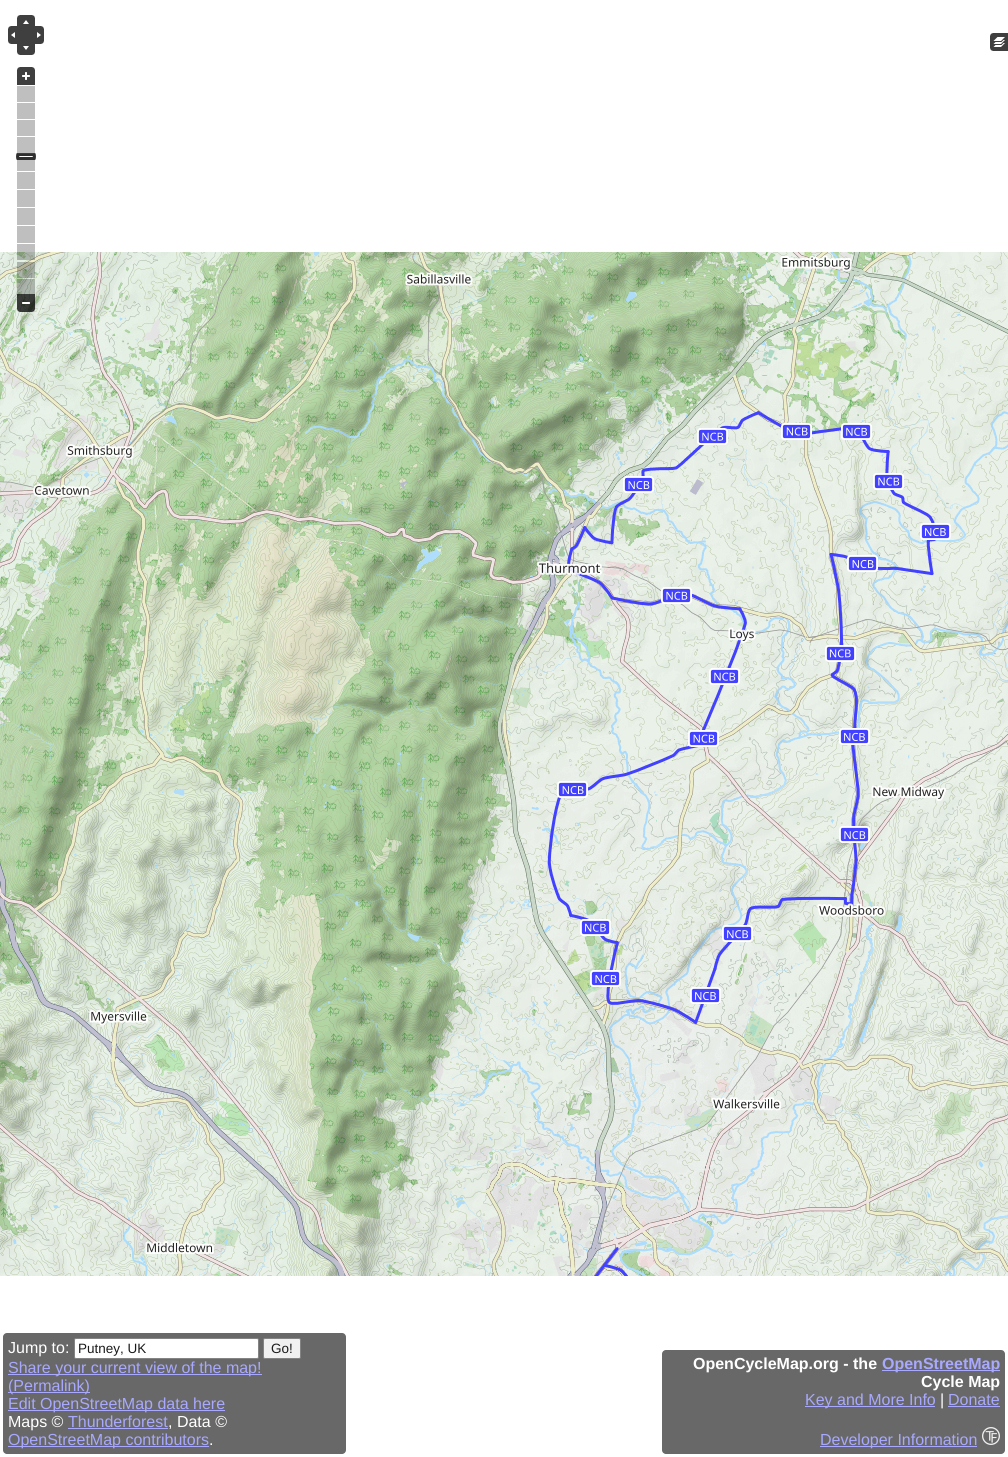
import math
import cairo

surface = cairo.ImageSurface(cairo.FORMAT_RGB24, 1008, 1457)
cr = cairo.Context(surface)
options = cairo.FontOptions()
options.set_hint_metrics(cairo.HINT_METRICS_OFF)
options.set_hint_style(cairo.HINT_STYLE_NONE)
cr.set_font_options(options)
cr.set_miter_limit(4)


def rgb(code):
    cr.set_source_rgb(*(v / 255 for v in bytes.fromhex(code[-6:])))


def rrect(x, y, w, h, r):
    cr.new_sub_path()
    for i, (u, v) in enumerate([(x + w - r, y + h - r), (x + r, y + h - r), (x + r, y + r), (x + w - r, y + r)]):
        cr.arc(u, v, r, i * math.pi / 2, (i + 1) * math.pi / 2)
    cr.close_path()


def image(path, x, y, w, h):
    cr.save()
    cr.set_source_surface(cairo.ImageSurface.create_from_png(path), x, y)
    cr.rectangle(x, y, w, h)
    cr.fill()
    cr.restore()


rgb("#ffffff")
cr.paint()
rgb("#686868")
rrect(3, 1333, 343, 121, 4)
cr.fill()
rgb("#ffffff")
rrect(74.5, 1338.5, 184, 20, 1.5)
cr.fill_preserve()
rgb("#848484")
cr.set_line_width(1)
cr.stroke()
rgb("#f1f1f1")
rrect(263.5, 1338.5, 37, 20, 1.5)
cr.fill_preserve()
rgb("#848484")
cr.stroke()
for x, y, w, h, color in [
    (8, 1374, 254, 1, "#a8a8ff"),
    (8, 1392, 82, 1, "#a8a8ff"),
    (8, 1410, 217, 1, "#a8a8ff"),
    (68, 1428, 100, 1, "#a8a8ff"),
    (8, 1446, 201, 1, "#a8a8ff"),
]:
    rgb(color)
    cr.rectangle(x, y, w, h)
    cr.fill()
image("img/1.png", 17, 15, 18, 11)
image("img/2.png", 8, 26, 18, 18)
image("img/3.png", 26, 26, 18, 18)
image("img/4.png", 17, 44, 18, 11)
image("img/5.png", 17, 67, 18, 18)
image("img/10.png", 0, 252, 255, 256)
image("img/6.png", 17, 86, 18, 208)
image("img/7.png", 16, 153, 20, 7)
image("img/8.png", 17, 294, 18, 18)
image("img/9.png", 990, 33, 18, 18)
image("img/11.png", 255, 252, 256, 256)
image("img/12.png", 511, 252, 256, 256)
image("img/13.png", 767, 252, 241, 256)
image("img/14.png", 0, 508, 255, 256)
image("img/15.png", 255, 508, 256, 256)
image("img/16.png", 511, 508, 256, 256)
image("img/17.png", 767, 508, 241, 256)
image("img/18.png", 0, 764, 255, 256)
image("img/19.png", 255, 764, 256, 256)
image("img/20.png", 511, 764, 256, 256)
image("img/21.png", 767, 764, 241, 256)
image("img/22.png", 0, 1020, 255, 256)
image("img/23.png", 255, 1020, 256, 256)
image("img/24.png", 511, 1020, 256, 256)
image("img/25.png", 767, 1020, 241, 256)
rgb("#686868")
rrect(662, 1350, 343, 104, 4)
cr.fill()
for x, y, w, h, color in [
    (882, 1370, 118, 1, "#a8a8ff"),
    (805, 1406, 130, 1, "#a8a8ff"),
    (948, 1406, 52, 1, "#a8a8ff"),
    (820, 1446, 157, 1, "#a8a8ff"),
]:
    rgb(color)
    cr.rectangle(x, y, w, h)
    cr.fill()
image("img/26.png", 982, 1427, 18, 18)
cr.select_font_face("Liberation Sans")
cr.set_font_size(16)
rgb("#ffffff")
cr.move_to(8, 1353)
cr.show_text("Jump to:")
cr.set_font_size(13.5)
rgb("#1a1a1a")
cr.move_to(78, 1353)
cr.show_text("Putney, UK")
cr.move_to(271, 1353)
cr.show_text("Go!")
cr.set_font_size(16)
rgb("#a8a8ff")
for x, y, s in [
    (8, 1373, "Share your current view of the map!"),
    (8, 1391, "(Permalink)"),
    (8, 1409, "Edit OpenStreetMap data here"),
]:
    cr.move_to(x, y)
    cr.show_text(s)
rgb("#ffffff")
cr.move_to(8, 1427)
cr.show_text("Maps ©")
rgb("#a8a8ff")
cr.move_to(68, 1427)
cr.show_text("Thunderforest")
rgb("#ffffff")
cr.move_to(168, 1427)
cr.show_text(", Data ©")
rgb("#a8a8ff")
cr.move_to(8, 1445)
cr.show_text("OpenStreetMap contributors")
rgb("#ffffff")
cr.move_to(209, 1445)
cr.show_text(".")
cr.select_font_face("Liberation Sans", cairo.FONT_SLANT_NORMAL, cairo.FONT_WEIGHT_BOLD)
cr.move_to(693, 1369)
cr.show_text("OpenCycleMap.org - the")
rgb("#a8a8ff")
cr.move_to(882, 1369)
cr.show_text("OpenStreetMap")
rgb("#ffffff")
cr.move_to(921, 1387)
cr.show_text("Cycle Map")
cr.select_font_face("Liberation Sans")
rgb("#a8a8ff")
cr.move_to(805, 1405)
cr.show_text("Key and More Info")
rgb("#ffffff")
cr.move_to(940, 1405)
cr.show_text("|")
rgb("#a8a8ff")
cr.move_to(948, 1405)
cr.show_text("Donate")
cr.move_to(820, 1445)
cr.show_text("Developer Information")
surface.write_to_png("page.png")
